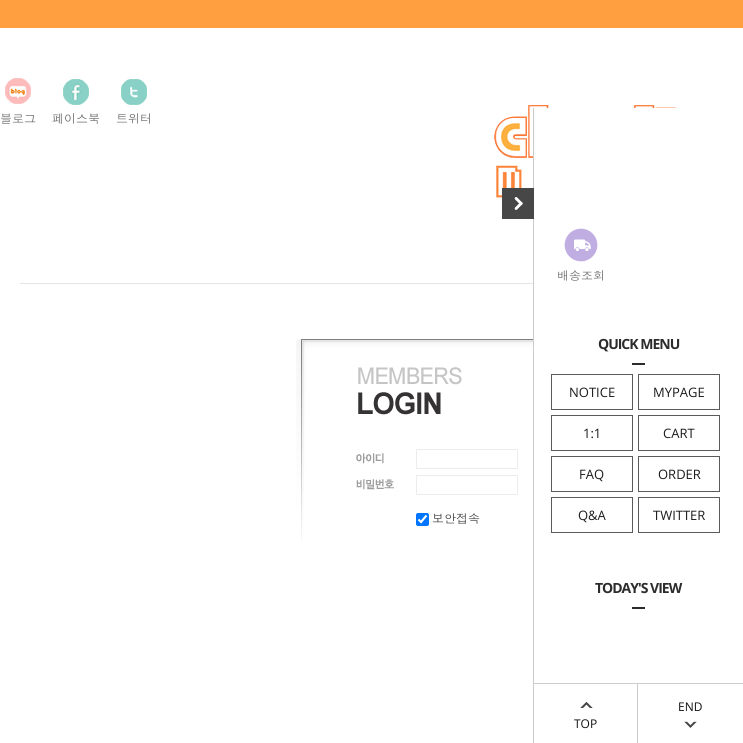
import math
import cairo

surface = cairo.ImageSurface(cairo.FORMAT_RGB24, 743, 743)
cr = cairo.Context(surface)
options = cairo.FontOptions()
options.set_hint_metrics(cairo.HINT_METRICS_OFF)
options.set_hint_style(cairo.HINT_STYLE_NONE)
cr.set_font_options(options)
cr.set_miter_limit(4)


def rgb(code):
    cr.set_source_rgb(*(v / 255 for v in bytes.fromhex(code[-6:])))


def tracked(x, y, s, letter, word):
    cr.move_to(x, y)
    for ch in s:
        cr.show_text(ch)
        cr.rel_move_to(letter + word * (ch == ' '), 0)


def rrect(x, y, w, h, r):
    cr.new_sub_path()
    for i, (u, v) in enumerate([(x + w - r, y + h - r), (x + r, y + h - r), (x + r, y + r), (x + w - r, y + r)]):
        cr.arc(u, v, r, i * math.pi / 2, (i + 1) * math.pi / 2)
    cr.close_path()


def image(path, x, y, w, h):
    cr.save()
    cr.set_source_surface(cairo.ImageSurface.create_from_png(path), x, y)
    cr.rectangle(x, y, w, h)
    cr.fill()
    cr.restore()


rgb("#ffffff")
cr.paint()
rgb("#ff9f3f")
cr.rectangle(0, 0, 743, 28)
cr.fill()
image("img/1.png", 5, 78, 26, 26)
image("img/2.png", 63, 79, 26, 26)
image("img/3.png", 121, 79, 26, 26)
image("img/4.png", 494, 105, 182, 93)
rgb("#e5e5e5")
cr.rectangle(20, 283, 513, 1)
cr.fill()
image("img/5.png", 296, 339, 237, 203)
image("img/6.png", 356, 453, 28, 11)
cr.rectangle(416.5, 449.5, 101, 19)
rgb("#ededed")
cr.set_line_width(1)
cr.stroke()
image("img/7.png", 356, 479, 38, 11)
cr.rectangle(416.5, 475.5, 101, 19)
cr.stroke()
rgb("#0075ff")
rrect(416, 513, 13, 13, 2)
cr.fill()
cr.new_path()
cr.move_to(418.5, 519.5)
cr.line_to(421, 522)
cr.line_to(426.5, 515.5)
rgb("#ffffff")
cr.set_line_width(2.1)
cr.stroke()
for x, y, w, h, color in [
    (534, 108, 142, 90, "#ffffff"),
    (533, 108, 1, 635, "#cccccc"),
    (502, 188, 32, 31, "#474747"),
]:
    rgb(color)
    cr.rectangle(x, y, w, h)
    cr.fill()
image("img/8.png", 514, 197, 9, 13)
image("img/9.png", 564, 228, 34, 34)
rgb("#2c2c2c")
cr.rectangle(632, 363, 13, 2)
cr.fill()
cr.rectangle(551.5, 374.5, 81, 35)
rgb("#5b5b5b")
cr.set_line_width(1)
cr.stroke()
cr.rectangle(638.5, 374.5, 81, 35)
cr.stroke()
cr.rectangle(551.5, 415.5, 81, 35)
cr.stroke()
cr.rectangle(638.5, 415.5, 81, 35)
cr.stroke()
cr.rectangle(551.5, 456.5, 81, 35)
cr.stroke()
cr.rectangle(638.5, 456.5, 81, 35)
cr.stroke()
cr.rectangle(551.5, 497.5, 81, 35)
cr.stroke()
cr.rectangle(638.5, 497.5, 81, 35)
cr.stroke()
for x, y, w, h, color in [
    (632, 607, 13, 2, "#2c2c2c"),
    (534, 683, 209, 1, "#cccccc"),
    (637, 684, 1, 59, "#cccccc"),
]:
    rgb(color)
    cr.rectangle(x, y, w, h)
    cr.fill()
image("img/10.png", 684, 721, 13, 7)
image("img/11.png", 580, 702, 13, 6)
cr.select_font_face("Dotum")
cr.set_font_size(12)
rgb("#686868")
for x, y, s in [
    (0, 123, "블로그"),
    (52, 123, "페이스북"),
    (116, 123, "트위터"),
]:
    cr.move_to(x, y)
    cr.show_text(s)
rgb("#3b3b3b")
cr.move_to(432, 523)
cr.show_text("보안접속")
rgb("#686868")
cr.move_to(557, 280)
cr.show_text("배송조회")
cr.select_font_face("Open Sans", cairo.FONT_SLANT_NORMAL, cairo.FONT_WEIGHT_BOLD)
cr.set_font_size(14)
rgb("#2c2c2c")
tracked(598, 349, "QUICK MENU", -1, 0)
cr.select_font_face("Open Sans")
cr.set_font_size(13)
rgb("#1b1b1b")
for x, y, s in [
    (569, 397, "NOTICE"),
    (653, 397, "MYPAGE"),
    (583, 438, "1:1"),
    (663, 438, "CART"),
    (579, 479, "FAQ"),
    (658, 479, "ORDER"),
    (578, 520, "Q&A"),
    (653, 520, "TWITTER"),
]:
    cr.move_to(x, y)
    cr.show_text(s)
cr.select_font_face("Open Sans", cairo.FONT_SLANT_NORMAL, cairo.FONT_WEIGHT_BOLD)
cr.set_font_size(14)
rgb("#2c2c2c")
tracked(595, 593, "TODAY'S VIEW", -1, 0)
cr.select_font_face("Open Sans")
cr.set_font_size(12)
rgb("#111111")
cr.move_to(678, 711)
cr.show_text("END")
cr.move_to(574, 728)
cr.show_text("TOP")
surface.write_to_png("page.png")
